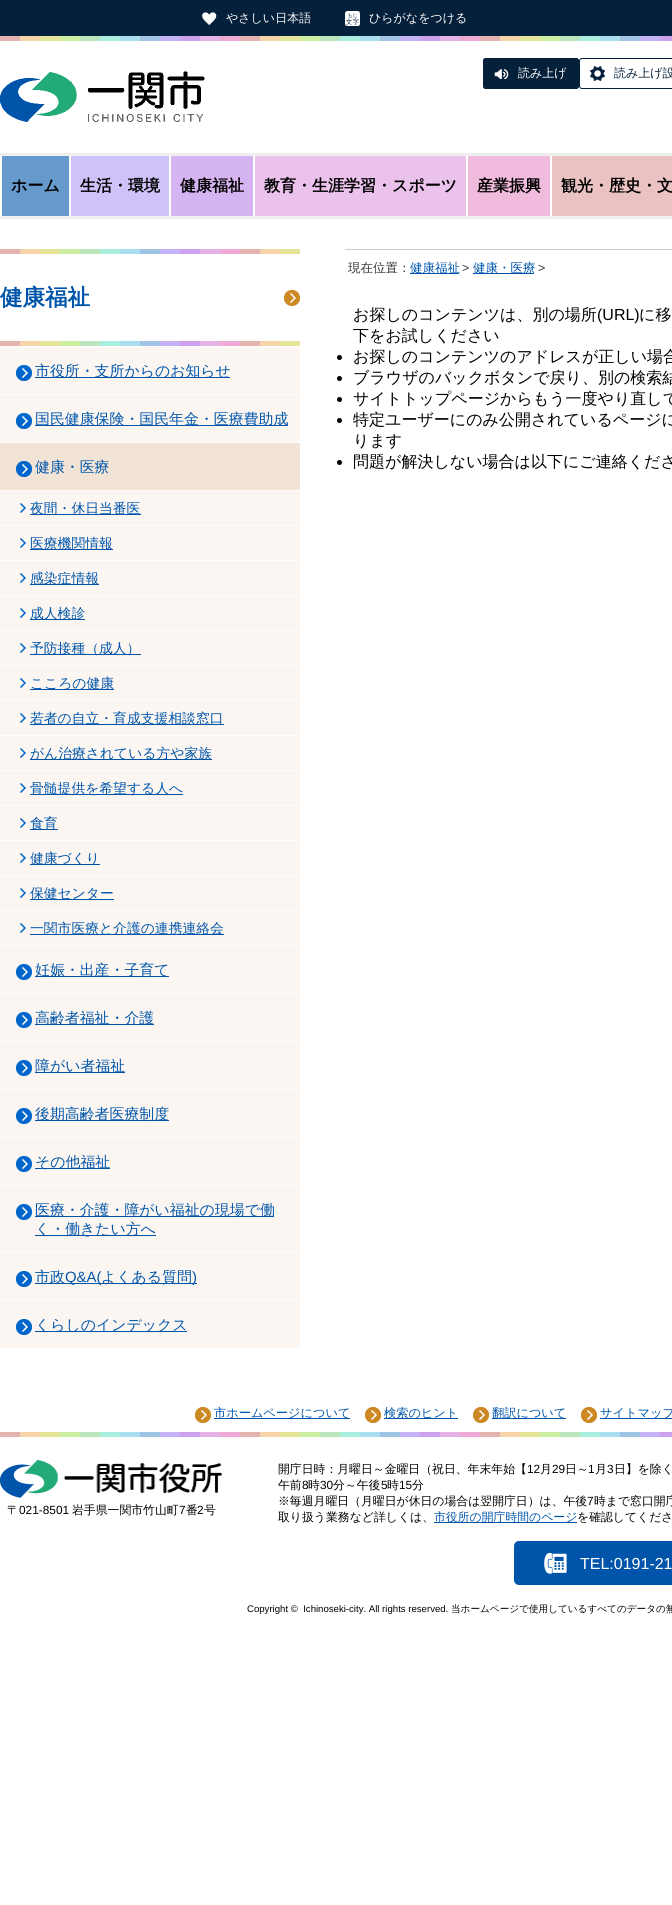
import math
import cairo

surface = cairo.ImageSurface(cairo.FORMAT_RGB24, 672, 1905)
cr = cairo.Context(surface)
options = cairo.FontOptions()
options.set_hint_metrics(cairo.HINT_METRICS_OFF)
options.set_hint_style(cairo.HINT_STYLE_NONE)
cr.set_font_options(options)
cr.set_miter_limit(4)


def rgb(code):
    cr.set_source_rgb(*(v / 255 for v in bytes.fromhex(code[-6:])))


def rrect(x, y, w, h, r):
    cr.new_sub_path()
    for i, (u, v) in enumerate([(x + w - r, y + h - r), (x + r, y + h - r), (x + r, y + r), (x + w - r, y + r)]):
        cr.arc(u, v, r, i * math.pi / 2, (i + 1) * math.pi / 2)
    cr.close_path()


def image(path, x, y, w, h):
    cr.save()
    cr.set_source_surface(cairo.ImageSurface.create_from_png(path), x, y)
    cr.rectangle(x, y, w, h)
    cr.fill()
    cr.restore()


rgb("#ffffff")
cr.paint()
rgb("#05203a")
cr.rectangle(0, 0, 672, 36)
cr.fill()
image("img/1.png", 202, 12, 15, 13)
image("img/2.png", 345, 11, 15, 15)
image("img/3.png", 0, 36, 672, 5)
image("img/4.png", 0, 71, 205, 51)
rrect(483, 58, 96, 31, 3)
cr.fill()
image("img/5.png", 494, 69, 15, 10)
rrect(483.5, 58.5, 95, 30, 2.5)
cr.set_line_width(1)
cr.stroke()
image("img/6.png", 590, 66, 15, 15)
rrect(579.5, 58.5, 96, 30, 2.5)
cr.stroke()
for x, y, w, h, color in [
    (0, 153, 672, 3, "#eeeeee"),
    (0, 216, 672, 3, "#eeeeee"),
    (2, 156, 67, 60, "#6699cc"),
    (71, 156, 98, 60, "#cfc2f8"),
    (171, 156, 82, 60, "#d6b4f1"),
    (255, 156, 211, 60, "#ebc2eb"),
    (468, 156, 82, 60, "#f1bbdd"),
    (552, 156, 120, 60, "#ebc2c2"),
]:
    rgb(color)
    cr.rectangle(x, y, w, h)
    cr.fill()
image("img/7.png", 0, 249, 300, 97)
image("img/8.png", 284, 290, 16, 16)
rgb("#fbf6f2")
cr.rectangle(0, 347, 300, 1001)
cr.fill()
image("img/9.png", 16, 365, 16, 16)
rgb("#0055aa")
cr.rectangle(35, 377, 195, 1)
cr.fill()
image("img/9.png", 16, 413, 16, 16)
for x, y, w, h, color in [
    (0, 394, 300, 1, "#ffffff"),
    (35, 425, 253, 1, "#0055aa"),
    (0, 443, 300, 47, "#f1e3d6"),
]:
    rgb(color)
    cr.rectangle(x, y, w, h)
    cr.fill()
image("img/10.png", 16, 461, 16, 16)
rgb("#ffffff")
cr.rectangle(0, 442, 300, 1)
cr.fill()
image("img/11.png", 20, 503, 6, 10)
cr.rectangle(0, 490, 300, 1)
cr.fill()
rgb("#0055aa")
cr.rectangle(30, 514, 111, 1)
cr.fill()
image("img/11.png", 20, 538, 6, 10)
rgb("#ffffff")
cr.rectangle(0, 525, 300, 1)
cr.fill()
rgb("#0055aa")
cr.rectangle(30, 549, 83, 1)
cr.fill()
image("img/11.png", 20, 573, 6, 10)
rgb("#ffffff")
cr.rectangle(0, 560, 300, 1)
cr.fill()
rgb("#0055aa")
cr.rectangle(30, 584, 69, 1)
cr.fill()
image("img/11.png", 20, 608, 6, 10)
rgb("#ffffff")
cr.rectangle(0, 595, 300, 1)
cr.fill()
rgb("#0055aa")
cr.rectangle(30, 619, 55, 1)
cr.fill()
image("img/11.png", 20, 643, 6, 10)
rgb("#ffffff")
cr.rectangle(0, 630, 300, 1)
cr.fill()
rgb("#0055aa")
cr.rectangle(30, 654, 111, 1)
cr.fill()
image("img/11.png", 20, 678, 6, 10)
rgb("#ffffff")
cr.rectangle(0, 665, 300, 1)
cr.fill()
rgb("#0055aa")
cr.rectangle(30, 689, 84, 1)
cr.fill()
image("img/11.png", 20, 713, 6, 10)
rgb("#ffffff")
cr.rectangle(0, 700, 300, 1)
cr.fill()
rgb("#0055aa")
cr.rectangle(30, 724, 194, 1)
cr.fill()
image("img/11.png", 20, 748, 6, 10)
rgb("#ffffff")
cr.rectangle(0, 735, 300, 1)
cr.fill()
rgb("#0055aa")
cr.rectangle(30, 759, 182, 1)
cr.fill()
image("img/11.png", 20, 783, 6, 10)
rgb("#ffffff")
cr.rectangle(0, 770, 300, 1)
cr.fill()
rgb("#0055aa")
cr.rectangle(30, 794, 153, 1)
cr.fill()
image("img/11.png", 20, 818, 6, 10)
rgb("#ffffff")
cr.rectangle(0, 805, 300, 1)
cr.fill()
rgb("#0055aa")
cr.rectangle(30, 829, 28, 1)
cr.fill()
image("img/11.png", 20, 853, 6, 10)
rgb("#ffffff")
cr.rectangle(0, 840, 300, 1)
cr.fill()
rgb("#0055aa")
cr.rectangle(30, 864, 70, 1)
cr.fill()
image("img/11.png", 20, 888, 6, 10)
rgb("#ffffff")
cr.rectangle(0, 875, 300, 1)
cr.fill()
rgb("#0055aa")
cr.rectangle(30, 899, 84, 1)
cr.fill()
image("img/11.png", 20, 923, 6, 10)
rgb("#ffffff")
cr.rectangle(0, 910, 300, 1)
cr.fill()
rgb("#0055aa")
cr.rectangle(30, 934, 194, 1)
cr.fill()
image("img/9.png", 16, 964, 16, 16)
rgb("#ffffff")
cr.rectangle(0, 945, 300, 1)
cr.fill()
rgb("#0055aa")
cr.rectangle(35, 976, 134, 1)
cr.fill()
image("img/9.png", 16, 1012, 16, 16)
rgb("#ffffff")
cr.rectangle(0, 993, 300, 1)
cr.fill()
rgb("#0055aa")
cr.rectangle(35, 1024, 119, 1)
cr.fill()
image("img/9.png", 16, 1060, 16, 16)
rgb("#ffffff")
cr.rectangle(0, 1041, 300, 1)
cr.fill()
rgb("#0055aa")
cr.rectangle(35, 1072, 90, 1)
cr.fill()
image("img/9.png", 16, 1108, 16, 16)
rgb("#ffffff")
cr.rectangle(0, 1089, 300, 1)
cr.fill()
rgb("#0055aa")
cr.rectangle(35, 1120, 134, 1)
cr.fill()
image("img/9.png", 16, 1156, 16, 16)
rgb("#ffffff")
cr.rectangle(0, 1137, 300, 1)
cr.fill()
rgb("#0055aa")
cr.rectangle(35, 1168, 75, 1)
cr.fill()
image("img/9.png", 16, 1204, 16, 16)
for x, y, w, h, color in [
    (0, 1185, 300, 1, "#ffffff"),
    (35, 1216, 239, 1, "#0055aa"),
    (35, 1235, 121, 1, "#0055aa"),
]:
    rgb(color)
    cr.rectangle(x, y, w, h)
    cr.fill()
image("img/9.png", 16, 1271, 16, 16)
rgb("#ffffff")
cr.rectangle(0, 1252, 300, 1)
cr.fill()
rgb("#0055aa")
cr.rectangle(35, 1283, 162, 1)
cr.fill()
image("img/9.png", 16, 1319, 16, 16)
for x, y, w, h, color in [
    (0, 1300, 300, 1, "#ffffff"),
    (35, 1331, 152, 1, "#0055aa"),
    (345, 249, 327, 1, "#cccccc"),
    (410, 273, 49, 1, "#0055aa"),
    (473, 273, 61, 1, "#0055aa"),
]:
    rgb(color)
    cr.rectangle(x, y, w, h)
    cr.fill()
rgb("#000000")
cr.arc(339.5, 357.5, 2.5, 0, 2 * math.pi)
cr.fill()
cr.arc(339.5, 378.5, 2.5, 0, 2 * math.pi)
cr.fill()
cr.arc(339.5, 399.5, 2.5, 0, 2 * math.pi)
cr.fill()
cr.arc(339.5, 420.5, 2.5, 0, 2 * math.pi)
cr.fill()
cr.arc(339.5, 462.5, 2.5, 0, 2 * math.pi)
cr.fill()
image("img/8.png", 195, 1407, 16, 16)
rgb("#0055aa")
cr.rectangle(214, 1418, 136, 1)
cr.fill()
image("img/8.png", 365, 1407, 16, 16)
cr.rectangle(384, 1418, 74, 1)
cr.fill()
image("img/8.png", 473, 1407, 16, 16)
cr.rectangle(492, 1418, 74, 1)
cr.fill()
image("img/8.png", 581, 1407, 16, 16)
cr.rectangle(600, 1418, 72, 1)
cr.fill()
image("img/3.png", 0, 1432, 672, 5)
image("img/12.png", 0, 1460, 223, 38)
cr.rectangle(434, 1522, 143, 1)
cr.fill()
rrect(514, 1541, 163, 44, 5)
cr.fill()
image("img/13.png", 544, 1553, 23, 21)
cr.select_font_face("WenQuanYi Zen Hei Medium")
cr.set_font_size(12)
rgb("#ffffff")
for x, y, s in [
    (226, 22, "やさしい日本語"),
    (369, 22, "ひらがなをつける"),
    (518, 77, "読み上げ"),
]:
    cr.move_to(x, y)
    cr.show_text(s)
rgb("#05203a")
cr.move_to(614, 77)
cr.show_text("読み上げ設")
cr.select_font_face("WenQuanYi Zen Hei", cairo.FONT_SLANT_NORMAL, cairo.FONT_WEIGHT_BOLD)
cr.set_font_size(16)
rgb("#000000")
for x, y, s in [
    (11, 191, "ホーム"),
    (80, 191, "生活・環境"),
    (180, 191, "健康福祉"),
    (264, 191, "教育・生涯学習・スポーツ"),
    (477, 191, "産業振興"),
    (561, 191, "観光・歴史・文"),
]:
    cr.move_to(x, y)
    cr.show_text(s)
cr.set_font_size(22.5)
rgb("#0055aa")
cr.move_to(0, 305)
cr.show_text("健康福祉")
cr.select_font_face("WenQuanYi Zen Hei Medium")
cr.set_font_size(14.9)
for x, y, s in [
    (35, 376, "市役所・支所からのお知らせ"),
    (35, 424, "国民健康保険・国民年金・医療費助成"),
    (35, 472, "健康・医療"),
]:
    cr.move_to(x, y)
    cr.show_text(s)
cr.set_font_size(13.8)
for x, y, s in [
    (30, 513, "夜間・休日当番医"),
    (30, 548, "医療機関情報"),
    (30, 583, "感染症情報"),
    (30, 618, "成人検診"),
    (30, 653, "予防接種（成人）"),
    (30, 688, "こころの健康"),
    (30, 723, "若者の自立・育成支援相談窓口"),
    (30, 758, "がん治療されている方や家族"),
    (30, 793, "骨髄提供を希望する人へ"),
    (30, 828, "食育"),
    (30, 863, "健康づくり"),
    (30, 898, "保健センター"),
    (30, 933, "一関市医療と介護の連携連絡会"),
]:
    cr.move_to(x, y)
    cr.show_text(s)
cr.set_font_size(14.9)
for x, y, s in [
    (35, 975, "妊娠・出産・子育て"),
    (35, 1023, "高齢者福祉・介護"),
    (35, 1071, "障がい者福祉"),
    (35, 1119, "後期高齢者医療制度"),
    (35, 1167, "その他福祉"),
    (35, 1215, "医療・介護・障がい福祉の現場で働"),
    (35, 1234, "く・働きたい方へ"),
    (35, 1282, "市政"),
]:
    cr.move_to(x, y)
    cr.show_text(s)
cr.select_font_face("Liberation Sans")
cr.move_to(65, 1282)
cr.show_text("Q&A(")
cr.select_font_face("WenQuanYi Zen Hei Medium")
cr.move_to(101, 1282)
cr.show_text("よくある質問")
cr.select_font_face("Liberation Sans")
cr.move_to(192, 1282)
cr.show_text(")")
cr.select_font_face("WenQuanYi Zen Hei Medium")
cr.move_to(35, 1330)
cr.show_text("くらしのインデックス")
cr.set_font_size(12.5)
rgb("#333333")
cr.move_to(348, 272)
cr.show_text("現在位置：")
rgb("#0055aa")
cr.move_to(410, 272)
cr.show_text("健康福祉")
cr.select_font_face("Liberation Sans")
rgb("#333333")
cr.move_to(462, 272)
cr.show_text(">")
cr.select_font_face("WenQuanYi Zen Hei Medium")
rgb("#0055aa")
cr.move_to(473, 272)
cr.show_text("健康・医療")
cr.select_font_face("Liberation Sans")
rgb("#333333")
cr.move_to(538, 272)
cr.show_text(">")
cr.select_font_face("WenQuanYi Zen Hei Medium")
cr.set_font_size(16)
rgb("#000000")
cr.move_to(353, 320)
cr.show_text("お探しのコンテンツは、別の場所")
cr.select_font_face("Liberation Sans")
cr.move_to(597, 320)
cr.show_text("(URL)")
cr.select_font_face("WenQuanYi Zen Hei Medium")
for x, y, s in [
    (639, 320, "に移"),
    (353, 341, "下をお試しください"),
    (353, 362, "お探しのコンテンツのアドレスが正しい場合"),
    (353, 383, "ブラウザのバックボタンで戻り、別の検索結"),
    (353, 404, "サイトトップページからもう一度やり直して"),
    (353, 425, "特定ユーザーにのみ公開されているページに"),
    (353, 446, "ります"),
    (353, 467, "問題が解決しない場合は以下にご連絡くださ"),
]:
    cr.move_to(x, y)
    cr.show_text(s)
cr.set_font_size(12.2)
rgb("#0055aa")
for x, y, s in [
    (214, 1417, "市ホームページについて"),
    (384, 1417, "検索のヒント"),
    (492, 1417, "翻訳について"),
    (600, 1417, "サイトマップ"),
]:
    cr.move_to(x, y)
    cr.show_text(s)
cr.set_font_size(11.85)
rgb("#000000")
cr.move_to(7, 1514)
cr.show_text("〒")
cr.select_font_face("Liberation Sans")
cr.move_to(19, 1514)
cr.show_text("021-8501")
cr.select_font_face("WenQuanYi Zen Hei Medium")
cr.move_to(72, 1514)
cr.show_text("岩手県一関市竹山町")
cr.select_font_face("Liberation Sans")
cr.move_to(179, 1514)
cr.show_text("7")
cr.select_font_face("WenQuanYi Zen Hei Medium")
cr.move_to(186, 1514)
cr.show_text("番")
cr.select_font_face("Liberation Sans")
cr.move_to(197, 1514)
cr.show_text("2")
cr.select_font_face("WenQuanYi Zen Hei Medium")
cr.move_to(204, 1514)
cr.show_text("号")
cr.move_to(278, 1473)
cr.show_text("開庁日時：月曜日～金曜日（祝日、年末年始【")
cr.select_font_face("Liberation Sans")
cr.move_to(527, 1473)
cr.show_text("12")
cr.select_font_face("WenQuanYi Zen Hei Medium")
cr.move_to(540, 1473)
cr.show_text("月")
cr.select_font_face("Liberation Sans")
cr.move_to(552, 1473)
cr.show_text("29")
cr.select_font_face("WenQuanYi Zen Hei Medium")
cr.move_to(565, 1473)
cr.show_text("日～")
cr.select_font_face("Liberation Sans")
cr.move_to(588, 1473)
cr.show_text("1")
cr.select_font_face("WenQuanYi Zen Hei Medium")
cr.move_to(595, 1473)
cr.show_text("月")
cr.select_font_face("Liberation Sans")
cr.move_to(607, 1473)
cr.show_text("3")
cr.select_font_face("WenQuanYi Zen Hei Medium")
cr.move_to(614, 1473)
cr.show_text("日】を除く")
cr.move_to(278, 1489)
cr.show_text("午前")
cr.select_font_face("Liberation Sans")
cr.move_to(302, 1489)
cr.show_text("8")
cr.select_font_face("WenQuanYi Zen Hei Medium")
cr.move_to(308, 1489)
cr.show_text("時")
cr.select_font_face("Liberation Sans")
cr.move_to(320, 1489)
cr.show_text("30")
cr.select_font_face("WenQuanYi Zen Hei Medium")
cr.move_to(333, 1489)
cr.show_text("分～午後")
cr.select_font_face("Liberation Sans")
cr.move_to(381, 1489)
cr.show_text("5")
cr.select_font_face("WenQuanYi Zen Hei Medium")
cr.move_to(387, 1489)
cr.show_text("時")
cr.select_font_face("Liberation Sans")
cr.move_to(399, 1489)
cr.show_text("15")
cr.select_font_face("WenQuanYi Zen Hei Medium")
cr.move_to(412, 1489)
cr.show_text("分")
cr.move_to(278, 1505)
cr.show_text("※毎週月曜日（月曜日が休日の場合は翌開庁日）は、午後")
cr.select_font_face("Liberation Sans")
cr.move_to(587, 1505)
cr.show_text("7")
cr.select_font_face("WenQuanYi Zen Hei Medium")
cr.move_to(594, 1505)
cr.show_text("時まで窓口開庁")
cr.move_to(278, 1521)
cr.show_text("取り扱う業務など詳しくは、")
rgb("#0055aa")
cr.move_to(434, 1521)
cr.show_text("市役所の開庁時間のページ")
rgb("#000000")
cr.move_to(577, 1521)
cr.show_text("を確認してくださ")
cr.select_font_face("Liberation Sans")
cr.set_font_size(16)
rgb("#ffffff")
cr.move_to(580, 1569)
cr.show_text("TEL:0191-21")
cr.set_font_size(9.6)
rgb("#000000")
cr.move_to(247, 1612)
cr.show_text("Copyright ©  Ichinoseki-city. All rights reserved.")
cr.select_font_face("WenQuanYi Zen Hei Medium")
cr.move_to(451, 1612)
cr.show_text("当ホームページで使用しているすべてのデータの無")
surface.write_to_png("page.png")
